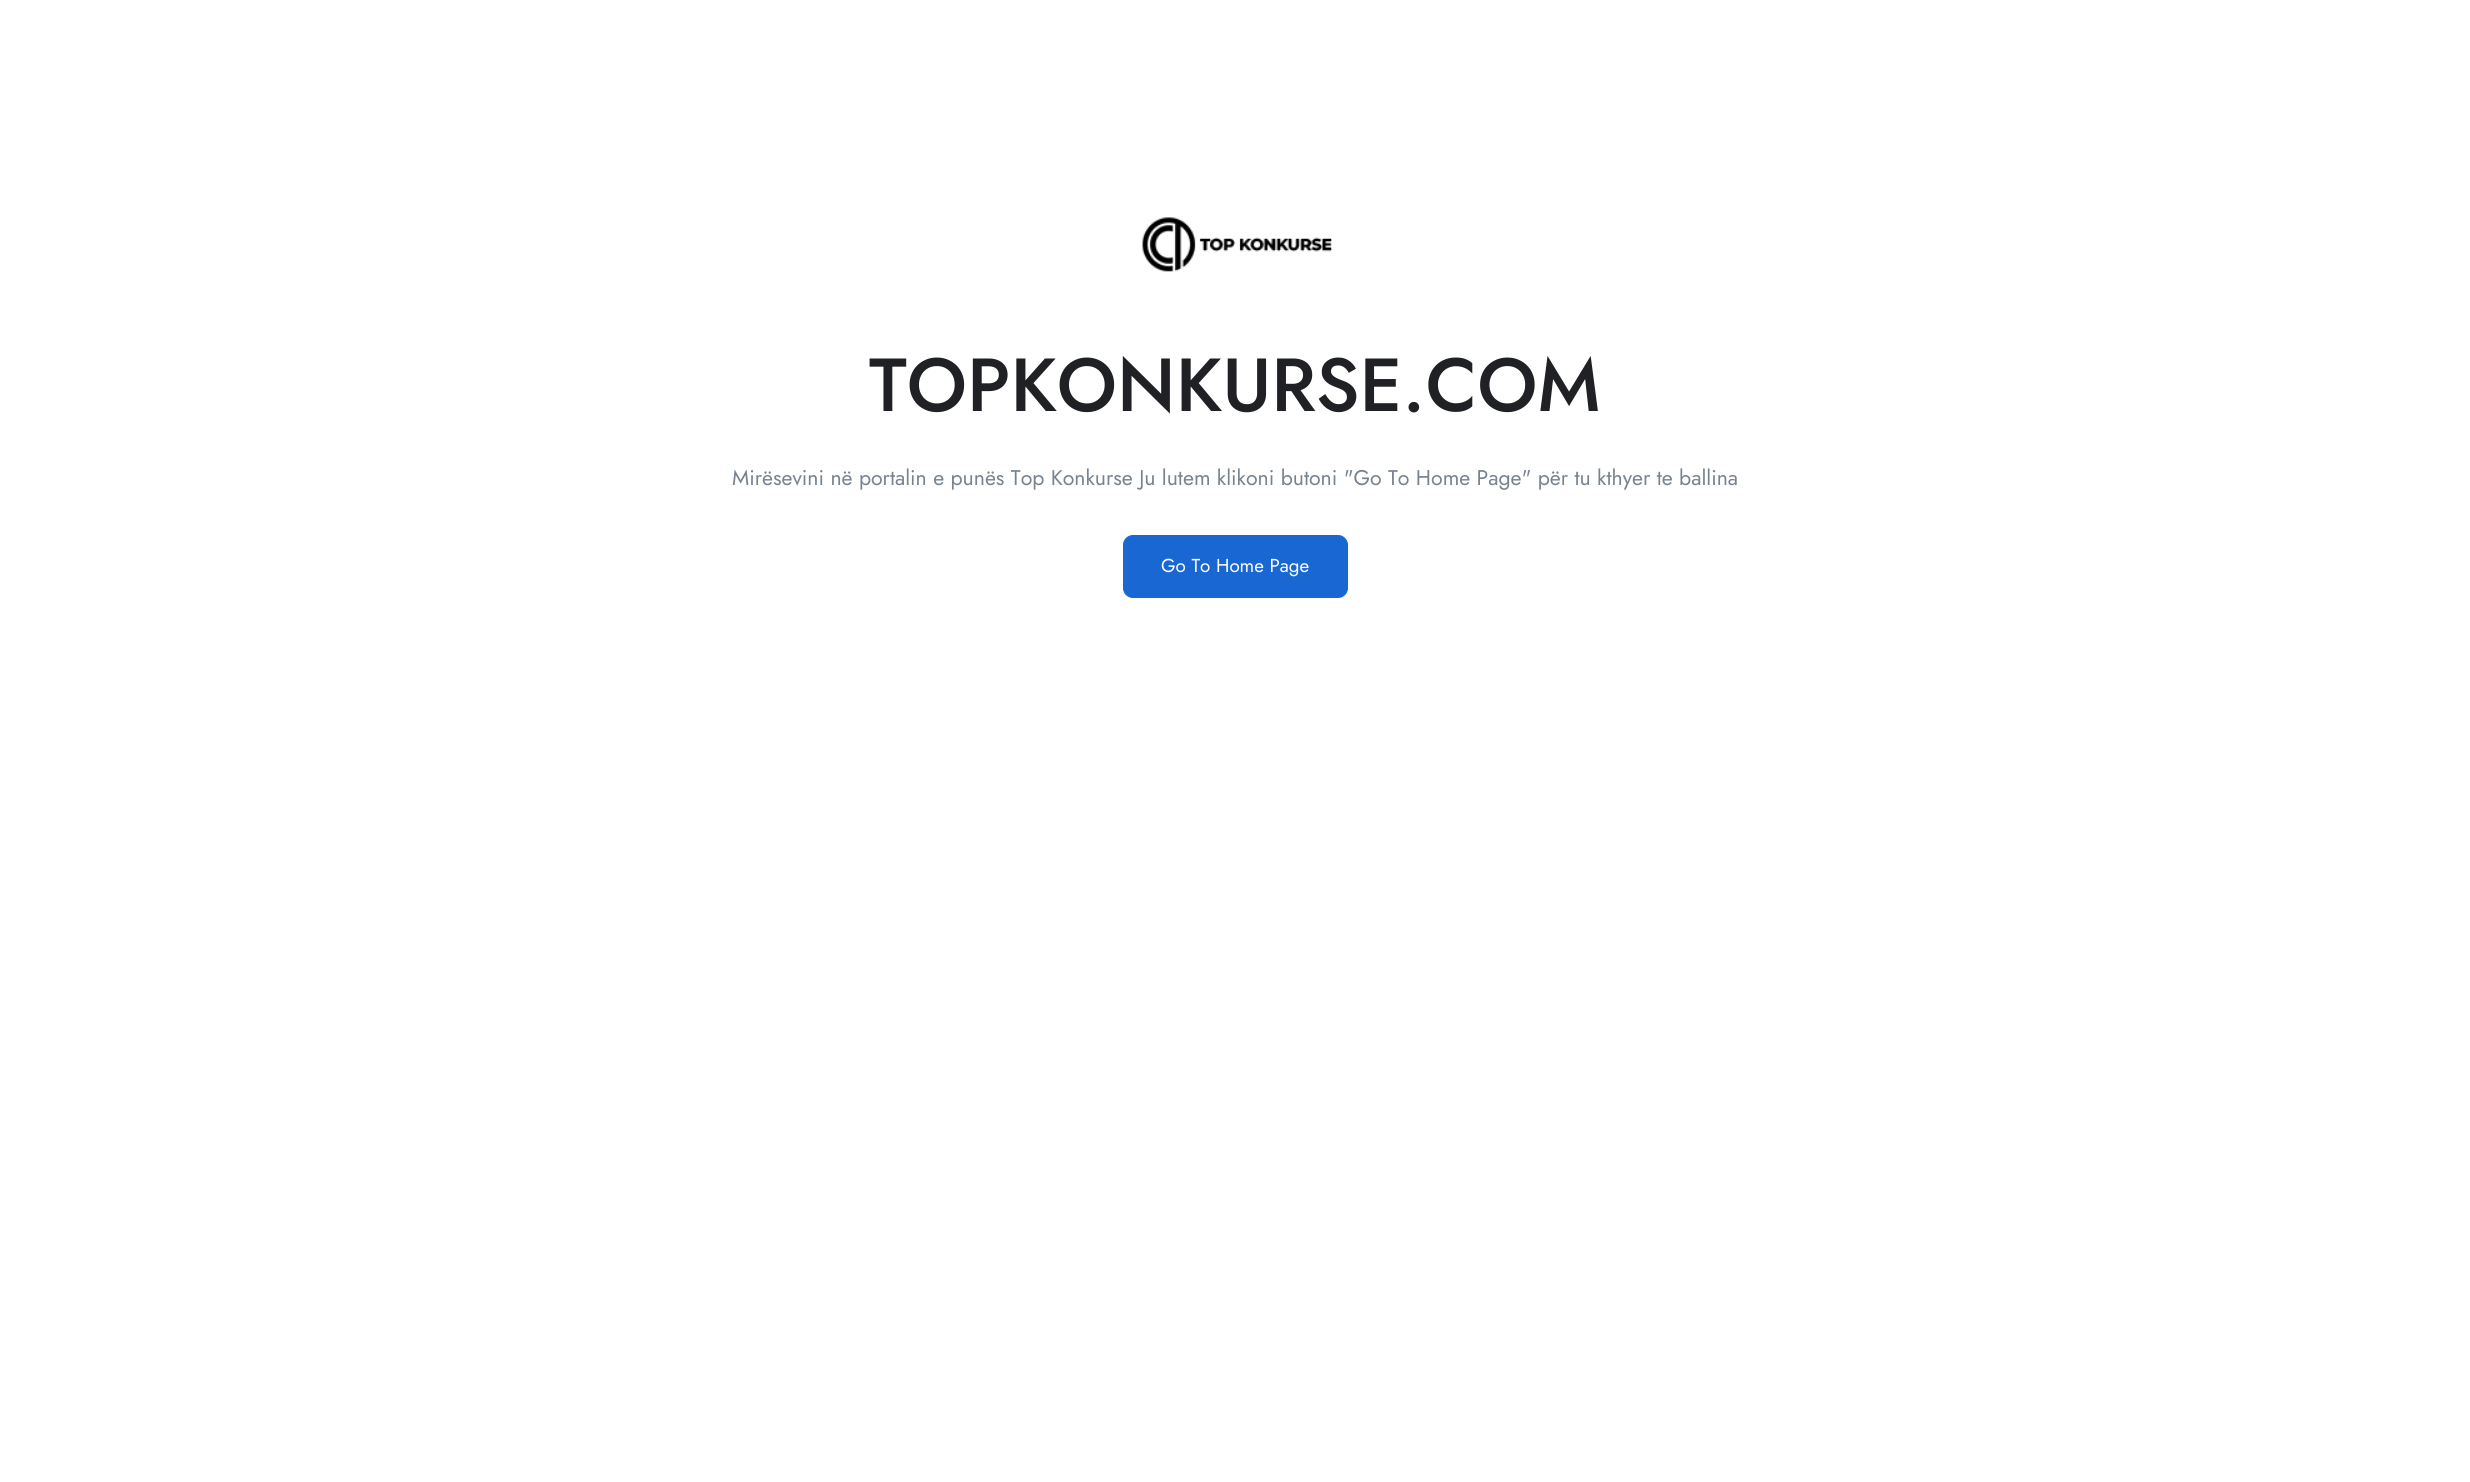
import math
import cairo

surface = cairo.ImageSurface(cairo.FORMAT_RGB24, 2470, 1482)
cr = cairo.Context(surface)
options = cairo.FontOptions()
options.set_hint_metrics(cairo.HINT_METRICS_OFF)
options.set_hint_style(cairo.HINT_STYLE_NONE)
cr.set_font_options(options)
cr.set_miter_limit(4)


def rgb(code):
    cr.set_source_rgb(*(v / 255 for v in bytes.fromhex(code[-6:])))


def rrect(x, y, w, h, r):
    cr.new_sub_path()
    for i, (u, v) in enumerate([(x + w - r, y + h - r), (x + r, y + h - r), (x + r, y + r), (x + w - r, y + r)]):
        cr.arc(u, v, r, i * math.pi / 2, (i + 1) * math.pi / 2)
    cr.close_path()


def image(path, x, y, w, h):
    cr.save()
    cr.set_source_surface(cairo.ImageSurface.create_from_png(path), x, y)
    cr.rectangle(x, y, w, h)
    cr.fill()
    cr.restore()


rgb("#ffffff")
cr.paint()
image("img/1.png", 1142, 217, 190, 55)
rgb("#1967d2")
rrect(1123.5, 535.5, 224, 62, 9.5)
cr.fill_preserve()
cr.set_line_width(1)
cr.stroke()
cr.select_font_face("Jost Medium")
cr.set_font_size(75)
rgb("#202124")
cr.move_to(869, 411)
cr.show_text("TOPKONKURSE.COM")
cr.select_font_face("Jost")
cr.set_font_size(21.25)
rgb("#77838f")
cr.move_to(732, 485)
cr.show_text("Mirësevini në portalin e punës Top Konkurse Ju lutem klikoni butoni \"Go To Home Page\" për tu kthyer te ballina")
cr.set_font_size(18.75)
rgb("#ffffff")
cr.move_to(1161, 572)
cr.show_text("Go To Home Page")
surface.write_to_png("page.png")
